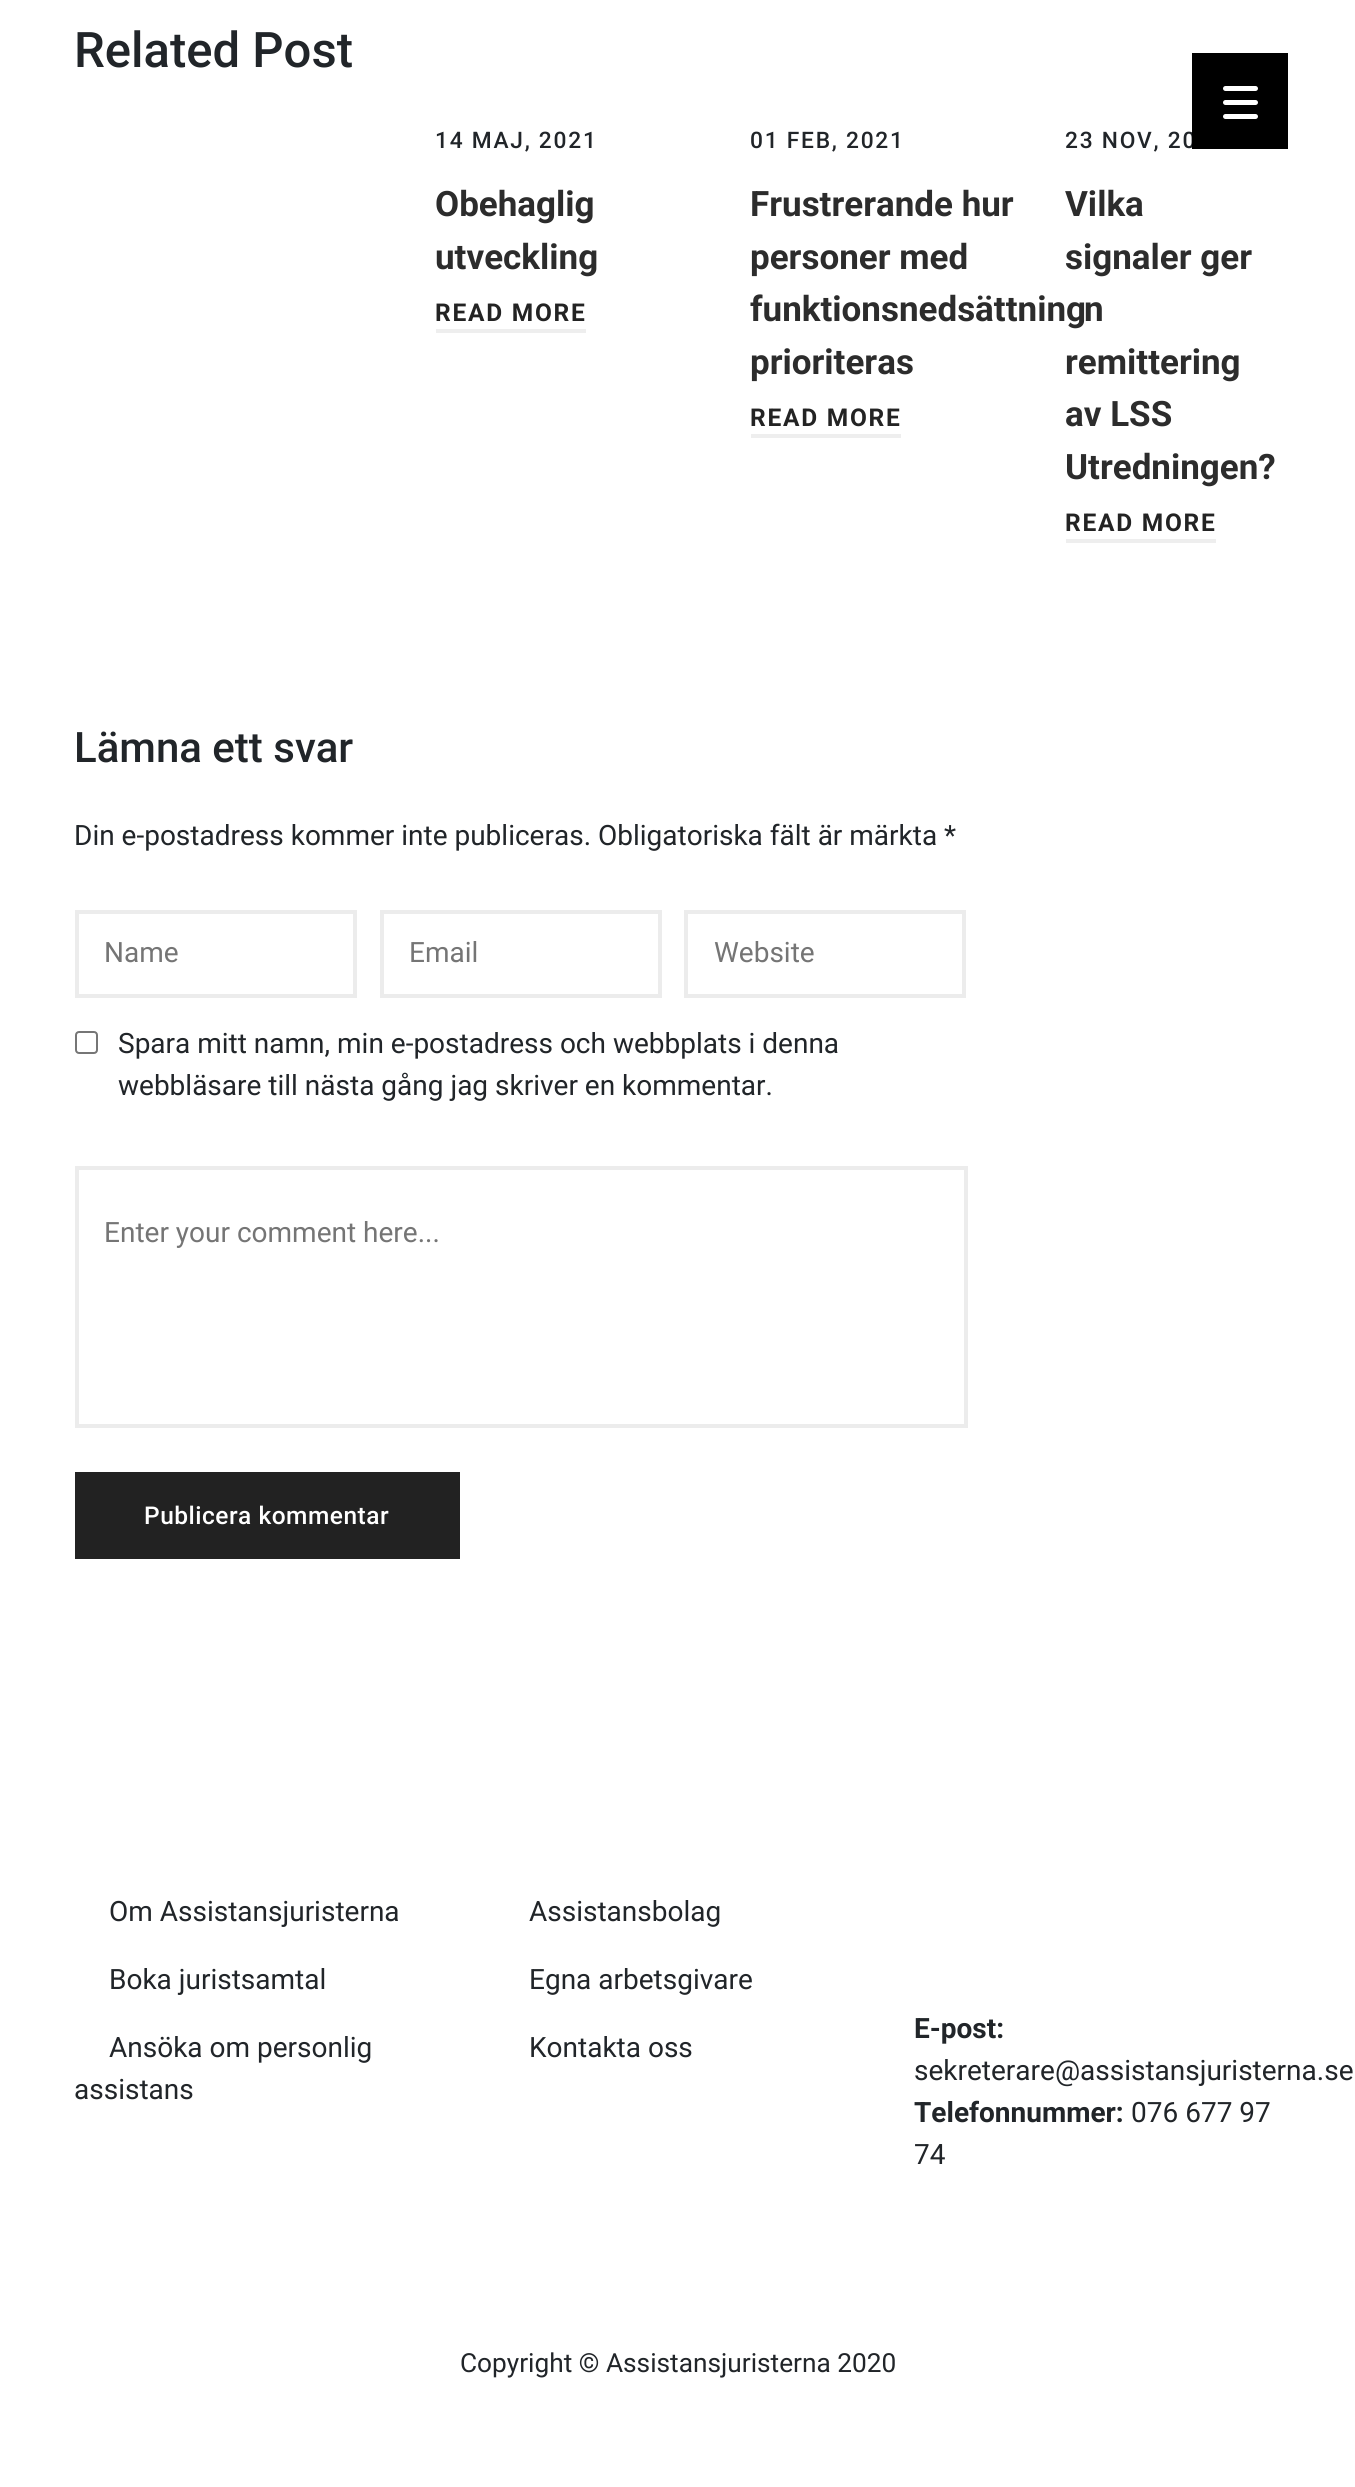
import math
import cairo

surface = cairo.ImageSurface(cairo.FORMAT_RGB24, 1355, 2487)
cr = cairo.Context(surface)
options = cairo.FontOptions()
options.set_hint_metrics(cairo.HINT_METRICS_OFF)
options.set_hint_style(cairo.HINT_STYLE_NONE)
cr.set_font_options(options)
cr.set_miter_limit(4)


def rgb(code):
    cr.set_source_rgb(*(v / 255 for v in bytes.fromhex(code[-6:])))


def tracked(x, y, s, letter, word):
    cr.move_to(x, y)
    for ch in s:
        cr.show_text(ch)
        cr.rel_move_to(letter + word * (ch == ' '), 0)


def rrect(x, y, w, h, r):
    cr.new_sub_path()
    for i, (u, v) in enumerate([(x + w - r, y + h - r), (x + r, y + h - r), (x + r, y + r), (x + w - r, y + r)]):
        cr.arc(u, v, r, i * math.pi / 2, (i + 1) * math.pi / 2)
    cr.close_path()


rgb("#ffffff")
cr.paint()
for x, y, w, h, color in [
    (436, 329, 150, 4, "#eeeeee"),
    (751, 434, 150, 4, "#eeeeee"),
    (1066, 539, 150, 4, "#eeeeee"),
]:
    rgb(color)
    cr.rectangle(x, y, w, h)
    cr.fill()
cr.rectangle(77, 912, 278, 84)
rgb("#ececec")
cr.set_line_width(4)
cr.stroke()
cr.rectangle(382, 912, 278, 84)
cr.stroke()
cr.rectangle(686, 912, 278, 84)
cr.stroke()
rrect(76, 1032, 21, 21, 3)
rgb("#767676")
cr.set_line_width(2)
cr.stroke()
cr.rectangle(77, 1168, 889, 258)
rgb("#ececec")
cr.set_line_width(4)
cr.stroke()
rgb("#222222")
cr.rectangle(75, 1472, 385, 87)
cr.fill()
cr.select_font_face("Roboto Medium")
cr.set_font_size(49)
rgb("#212529")
cr.move_to(74, 67)
cr.show_text("Related Post")
cr.set_font_size(22.75)
tracked(435, 148, "14 MAJ, 2021", 1.75, 0)
cr.select_font_face("Roboto", cairo.FONT_SLANT_NORMAL, cairo.FONT_WEIGHT_BOLD)
cr.set_font_size(35)
rgb("#2c2c2c")
cr.move_to(435, 216)
cr.show_text("Obehaglig")
cr.move_to(435, 269)
cr.show_text("utveckling")
cr.set_font_size(24.5)
rgb("#232323")
tracked(435, 321, "READ MORE", 1.75, 0)
cr.select_font_face("Roboto Medium")
cr.set_font_size(22.75)
rgb("#212529")
tracked(750, 148, "01 FEB, 2021", 1.75, 0)
cr.select_font_face("Roboto", cairo.FONT_SLANT_NORMAL, cairo.FONT_WEIGHT_BOLD)
cr.set_font_size(35)
rgb("#2c2c2c")
for x, y, s in [
    (750, 216, "Frustrerande hur"),
    (750, 269, "personer med"),
    (750, 321, "funktionsnedsättning"),
    (750, 374, "prioriteras"),
]:
    cr.move_to(x, y)
    cr.show_text(s)
cr.set_font_size(24.5)
rgb("#232323")
tracked(750, 426, "READ MORE", 1.75, 0)
cr.select_font_face("Roboto Medium")
cr.set_font_size(22.75)
rgb("#212529")
tracked(1065, 148, "23 NOV, 20", 1.75, 0)
cr.select_font_face("Roboto", cairo.FONT_SLANT_NORMAL, cairo.FONT_WEIGHT_BOLD)
cr.set_font_size(35)
rgb("#2c2c2c")
for x, y, s in [
    (1065, 216, "Vilka"),
    (1065, 269, "signaler ger"),
    (1084, 321, "n"),
    (1065, 374, "remittering"),
    (1065, 426, "av LSS"),
    (1065, 479, "Utredningen?"),
]:
    cr.move_to(x, y)
    cr.show_text(s)
cr.set_font_size(24.5)
rgb("#232323")
tracked(1065, 531, "READ MORE", 1.75, 0)
cr.select_font_face("Roboto Medium")
cr.set_font_size(42)
rgb("#212529")
cr.move_to(74, 762)
cr.show_text("Lämna ett svar")
cr.select_font_face("Roboto")
cr.set_font_size(28)
cr.move_to(74, 845)
cr.show_text("Din e-postadress kommer inte publiceras. Obligatoriska fält är märkta *")
rgb("#757575")
for x, y, s in [
    (104, 962, "Name"),
    (409, 962, "Email"),
    (714, 962, "Website"),
]:
    cr.move_to(x, y)
    cr.show_text(s)
rgb("#212529")
cr.move_to(118, 1053)
cr.show_text("Spara mitt namn, min e-postadress och webbplats i denna")
cr.move_to(118, 1095)
cr.show_text("webbläsare till nästa gång jag skriver en kommentar.")
rgb("#757575")
cr.move_to(104, 1242)
cr.show_text("Enter your comment here...")
cr.select_font_face("Roboto Medium")
cr.set_font_size(24.5)
rgb("#ffffff")
tracked(144, 1524, "Publicera kommentar", 0.5, 0)
cr.select_font_face("Roboto")
cr.set_font_size(28)
rgb("#212529")
for x, y, s in [
    (109, 1921, "Om Assistansjuristerna"),
    (109, 1989, "Boka juristsamtal"),
    (109, 2057, "Ansöka om personlig"),
    (74, 2099, "assistans"),
    (529, 1921, "Assistansbolag"),
    (529, 1989, "Egna arbetsgivare"),
    (529, 2057, "Kontakta oss"),
]:
    cr.move_to(x, y)
    cr.show_text(s)
cr.select_font_face("Roboto", cairo.FONT_SLANT_NORMAL, cairo.FONT_WEIGHT_BOLD)
cr.move_to(914, 2038)
cr.show_text("E-post:")
cr.select_font_face("Roboto")
cr.move_to(914, 2080)
cr.show_text("sekreterare@assistansjuristerna.se")
cr.select_font_face("Roboto", cairo.FONT_SLANT_NORMAL, cairo.FONT_WEIGHT_BOLD)
cr.move_to(914, 2122)
cr.show_text("Telefonnummer:")
cr.select_font_face("Roboto")
cr.move_to(1131, 2122)
cr.show_text("076 677 97")
cr.move_to(914, 2164)
cr.show_text("74")
cr.set_font_size(26.25)
cr.move_to(460, 2372)
cr.show_text("Copyright © Assistansjuristerna 2020")
rgb("#000000")
cr.rectangle(1192, 53, 96, 96)
cr.fill()
rgb("#ffffff")
rrect(1223, 100, 35, 5, 2.5)
cr.fill()
rrect(1223, 86, 35, 5, 2.5)
cr.fill()
rrect(1223, 114, 35, 5, 2.5)
cr.fill()
surface.write_to_png("page.png")
